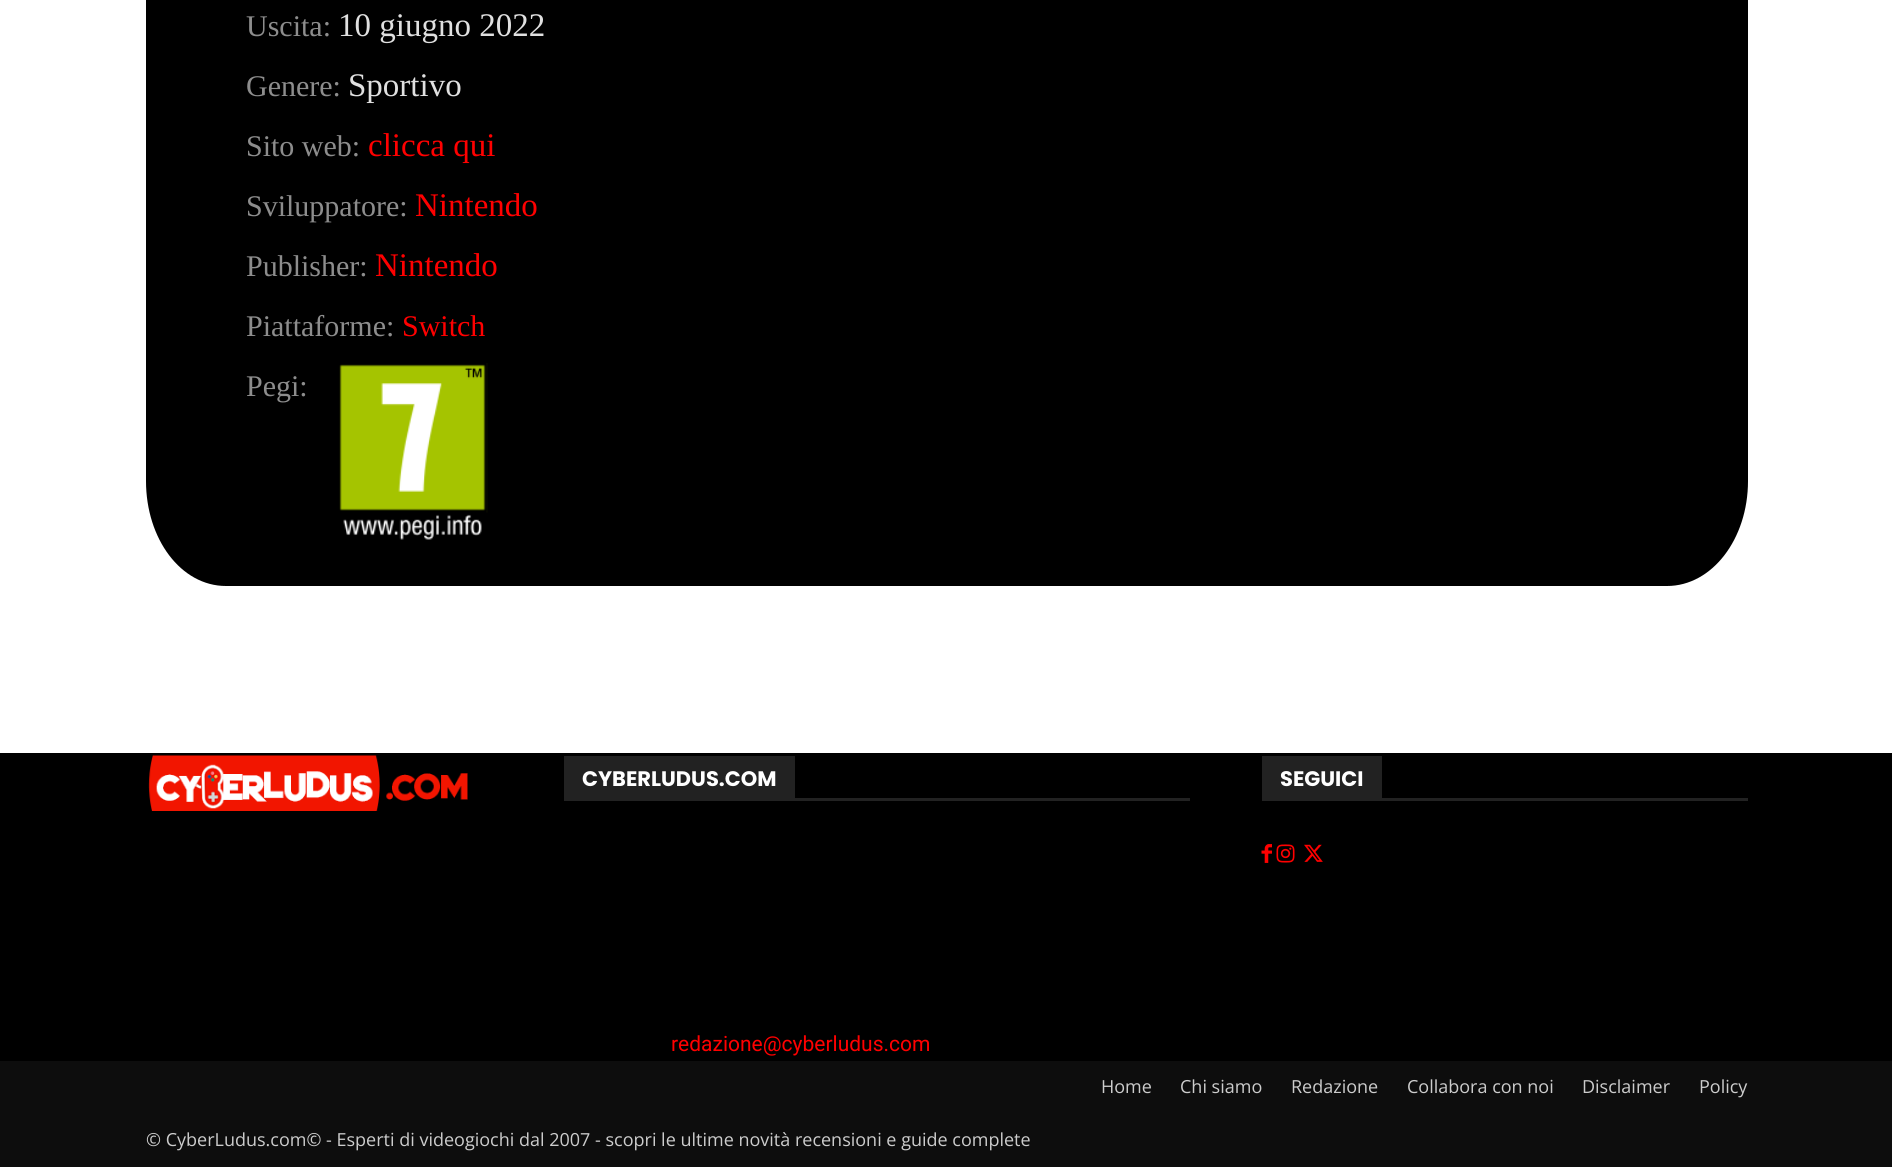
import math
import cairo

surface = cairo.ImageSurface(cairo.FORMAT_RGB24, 1892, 1167)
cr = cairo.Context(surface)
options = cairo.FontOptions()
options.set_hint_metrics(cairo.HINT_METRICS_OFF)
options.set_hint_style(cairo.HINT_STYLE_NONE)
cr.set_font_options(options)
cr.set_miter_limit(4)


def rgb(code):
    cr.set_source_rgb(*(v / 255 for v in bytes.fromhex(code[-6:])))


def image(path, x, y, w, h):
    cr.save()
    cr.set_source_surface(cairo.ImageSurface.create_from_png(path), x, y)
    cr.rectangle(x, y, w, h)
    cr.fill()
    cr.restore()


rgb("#000000")
cr.paint()
rgb("#ffffff")
cr.rectangle(0, 0, 1892, 753)
cr.fill()
rgb("#000000")
cr.new_path()
cr.move_to(226, -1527)
cr.line_to(1667, -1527)
cr.curve_to(1712, -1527, 1748, -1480, 1748, -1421)
cr.line_to(1748, 481)
cr.curve_to(1748, 539, 1712, 586, 1667, 586)
cr.line_to(226, 586)
cr.curve_to(181, 586, 146, 539, 146, 481)
cr.line_to(146, -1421)
cr.curve_to(146, -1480, 181, -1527, 226, -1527)
cr.close_path()
cr.fill()
image("img/1.png", 339, 363, 149, 177)
image("img/2.png", 148, 755, 320, 56)
for x, y, w, h, color in [
    (564, 798, 626, 3, "#222222"),
    (564, 756, 231, 42, "#222222"),
    (1262, 798, 486, 3, "#222222"),
    (1262, 756, 120, 42, "#222222"),
]:
    rgb(color)
    cr.rectangle(x, y, w, h)
    cr.fill()
image("img/3.png", 1261, 844, 11, 19)
image("img/4.png", 1276, 844, 19, 19)
image("img/5.png", 1304, 844, 19, 18)
rgb("#0d0d0d")
cr.rectangle(0, 1061, 1892, 106)
cr.fill()
cr.select_font_face("Liberation Serif")
cr.set_font_size(30)
rgb("#8d8d8d")
cr.move_to(246, 36)
cr.show_text("Uscita:")
cr.set_font_size(33)
rgb("#e0e0e0")
cr.move_to(338, 36)
cr.show_text("10 giugno 2022")
cr.set_font_size(30)
rgb("#8d8d8d")
cr.move_to(246, 96)
cr.show_text("Genere:")
cr.set_font_size(33)
rgb("#e0e0e0")
cr.move_to(348, 96)
cr.show_text("Sportivo")
cr.set_font_size(30)
rgb("#8d8d8d")
cr.move_to(246, 156)
cr.show_text("Sito web:")
cr.set_font_size(33)
rgb("#ff0000")
cr.move_to(368, 156)
cr.show_text("clicca qui")
cr.set_font_size(30)
rgb("#8d8d8d")
cr.move_to(246, 216)
cr.show_text("Sviluppatore:")
cr.set_font_size(33)
rgb("#ff0000")
cr.move_to(415, 216)
cr.show_text("Nintendo")
cr.set_font_size(30)
rgb("#8d8d8d")
cr.move_to(246, 276)
cr.show_text("Publisher:")
cr.set_font_size(33)
rgb("#ff0000")
cr.move_to(375, 276)
cr.show_text("Nintendo")
cr.set_font_size(30)
rgb("#8d8d8d")
cr.move_to(246, 336)
cr.show_text("Piattaforme:")
rgb("#ff0000")
cr.move_to(402, 336)
cr.show_text("Switch")
rgb("#8d8d8d")
cr.move_to(246, 396)
cr.show_text("Pegi:")
cr.select_font_face("Poppins", cairo.FONT_SLANT_NORMAL, cairo.FONT_WEIGHT_BOLD)
cr.set_font_size(21)
rgb("#ffffff")
cr.move_to(582, 786)
cr.show_text("CYBERLUDUS.COM")
cr.select_font_face("Roboto")
rgb("#ff0000")
cr.move_to(671, 1051)
cr.show_text("redazione@cyberludus.com")
cr.select_font_face("Poppins", cairo.FONT_SLANT_NORMAL, cairo.FONT_WEIGHT_BOLD)
rgb("#ffffff")
cr.move_to(1280, 786)
cr.show_text("SEGUICI")
cr.select_font_face("Open Sans")
cr.set_font_size(18)
rgb("#cccccc")
for x, y, s in [
    (1101, 1093, "Home"),
    (1180, 1093, "Chi siamo"),
    (1291, 1093, "Redazione"),
    (1407, 1093, "Collabora con noi"),
    (1582, 1093, "Disclaimer"),
    (1699, 1093, "Policy"),
    (146, 1146, "© CyberLudus.com© - Esperti di videogiochi dal 2007 - scopri le ultime novità recensioni e guide complete"),
]:
    cr.move_to(x, y)
    cr.show_text(s)
surface.write_to_png("page.png")
